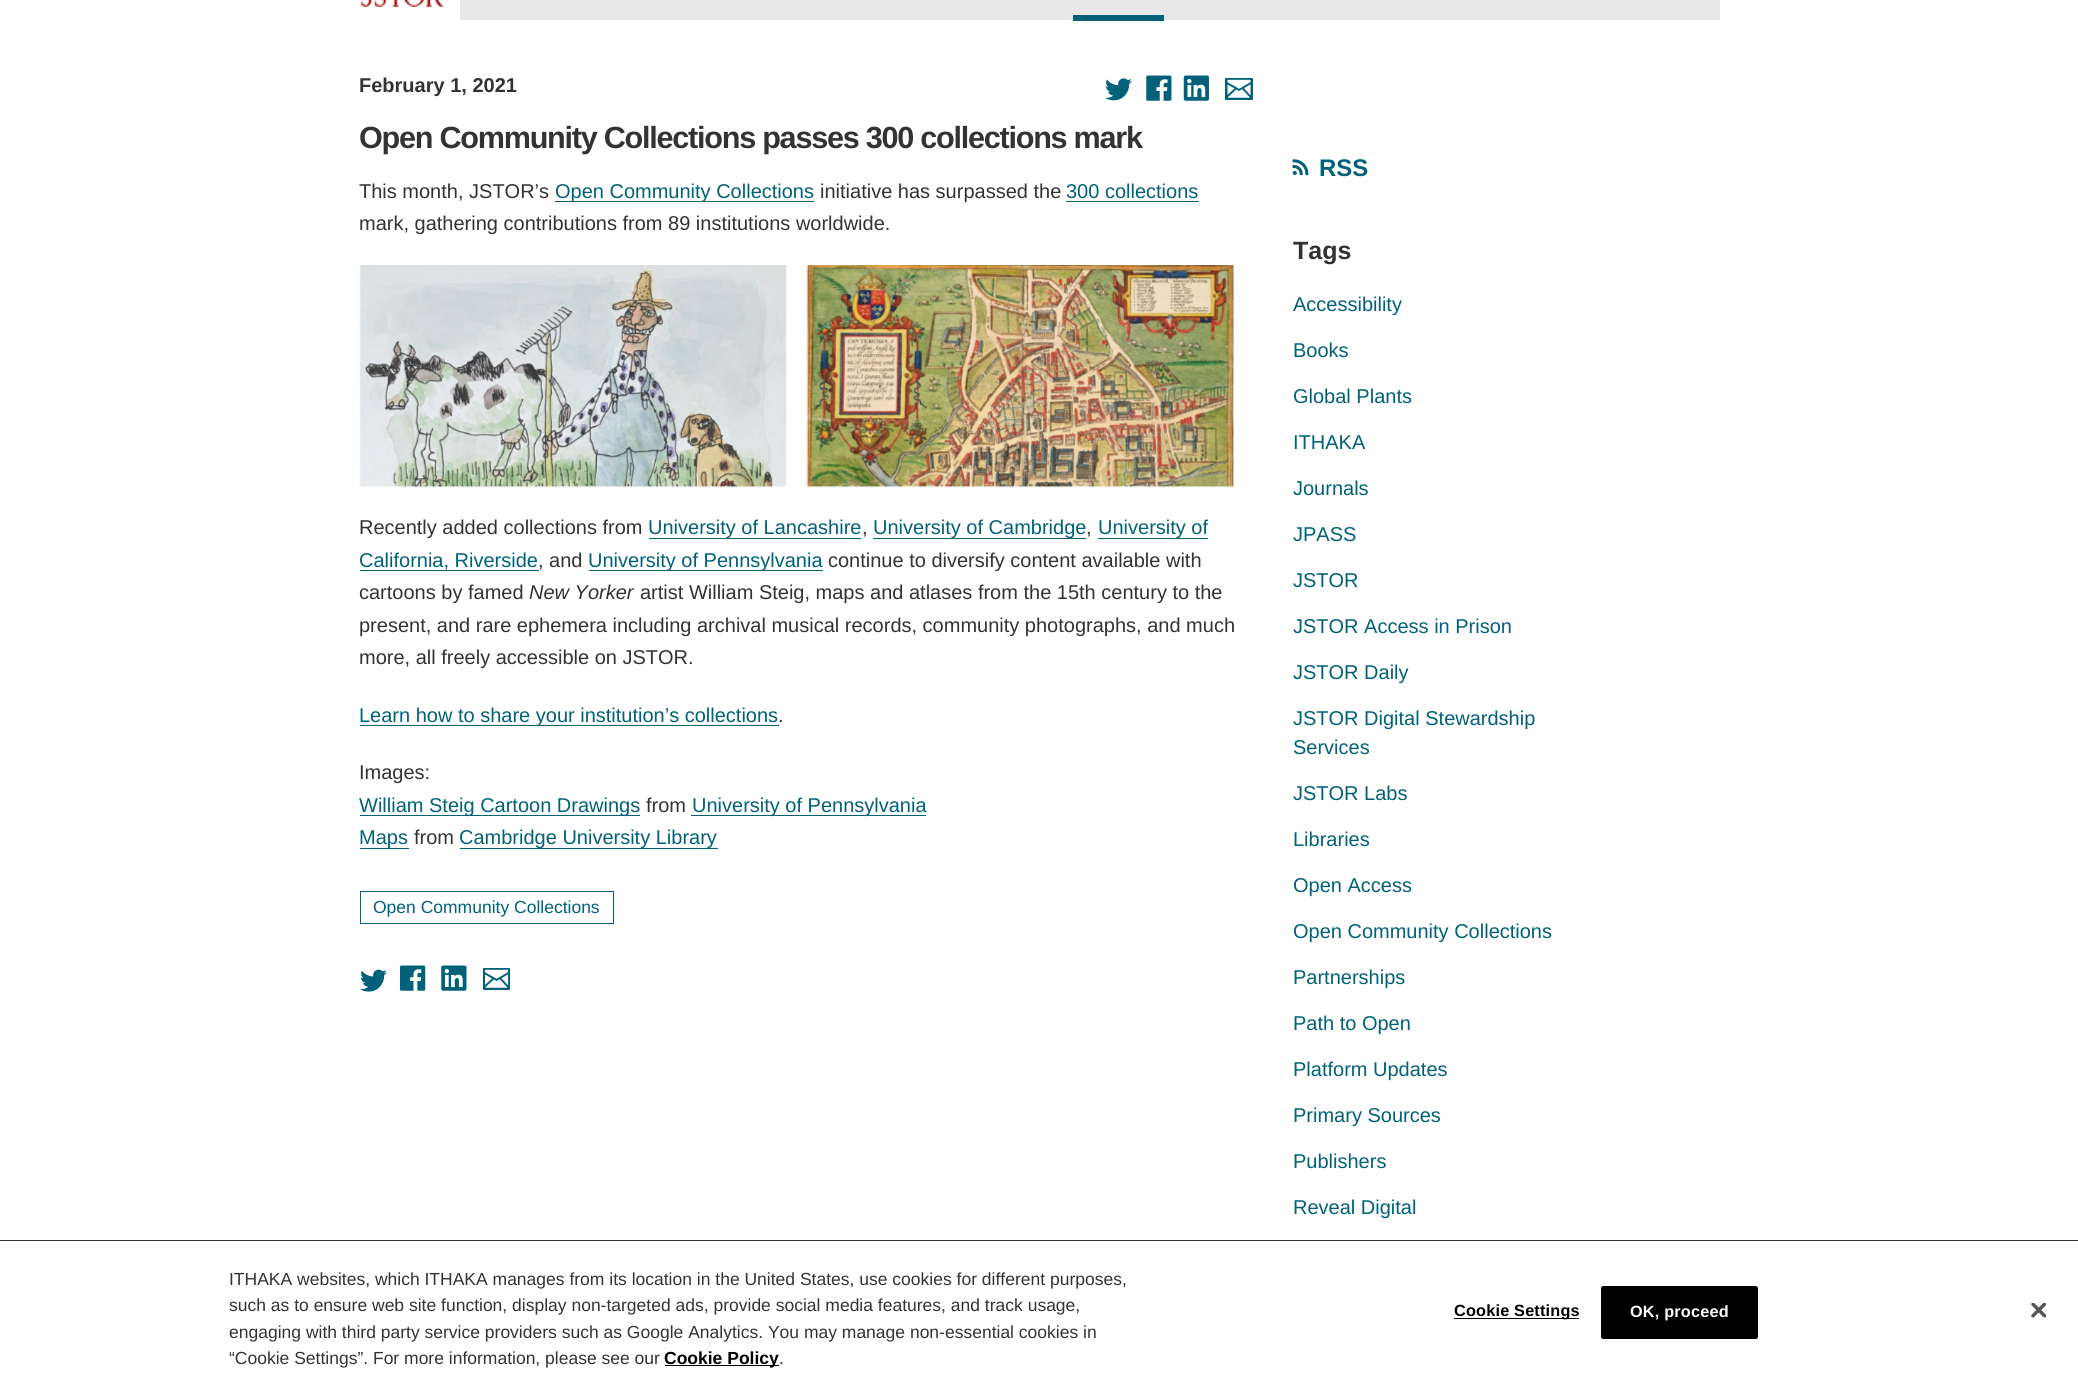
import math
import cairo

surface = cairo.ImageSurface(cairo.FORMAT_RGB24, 2078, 1383)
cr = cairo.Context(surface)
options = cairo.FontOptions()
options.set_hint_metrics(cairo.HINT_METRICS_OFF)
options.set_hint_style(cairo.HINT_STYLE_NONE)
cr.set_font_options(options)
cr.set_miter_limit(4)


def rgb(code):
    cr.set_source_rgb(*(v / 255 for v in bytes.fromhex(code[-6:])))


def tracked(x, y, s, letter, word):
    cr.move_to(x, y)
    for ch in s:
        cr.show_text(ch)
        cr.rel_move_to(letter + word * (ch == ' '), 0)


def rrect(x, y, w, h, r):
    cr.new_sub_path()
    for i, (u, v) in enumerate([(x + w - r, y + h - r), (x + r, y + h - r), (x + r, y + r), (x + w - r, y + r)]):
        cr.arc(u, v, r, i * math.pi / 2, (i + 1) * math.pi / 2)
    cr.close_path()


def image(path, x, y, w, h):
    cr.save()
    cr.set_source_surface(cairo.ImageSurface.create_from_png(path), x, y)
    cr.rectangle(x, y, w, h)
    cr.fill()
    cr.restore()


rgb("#ffffff")
cr.paint()
image("img/1.png", 360, 0, 84, 7)
rgb("#e8e8e8")
cr.rectangle(460, 0, 1260, 20)
cr.fill()
rgb("#006179")
cr.rectangle(1073, 15, 91, 6)
cr.fill()
image("img/2.png", 1105, 78, 27, 23)
image("img/3.png", 1146, 75, 26, 26)
image("img/4.png", 1183, 75, 26, 26)
rrect(1225, 78, 28, 22, 1)
cr.fill()
image("img/5.png", 1227, 79, 24, 19)
cr.rectangle(555, 201, 259, 1)
cr.fill()
cr.rectangle(1066, 201, 133, 1)
cr.fill()
image("img/6.png", 359, 265, 428, 223)
image("img/7.png", 806, 265, 428, 223)
for x, y, w, h, color in [
    (649, 538, 212, 1, "#006179"),
    (873, 538, 213, 1, "#006179"),
    (1098, 538, 110, 1, "#006179"),
    (360, 570, 179, 1, "#006179"),
    (589, 570, 234, 1, "#006179"),
    (360, 725, 419, 1, "#006179"),
    (360, 815, 280, 1, "#006179"),
    (691, 815, 235, 1, "#006179"),
    (360, 848, 49, 1, "#006179"),
    (460, 848, 258, 1, "#006179"),
]:
    rgb(color)
    cr.rectangle(x, y, w, h)
    cr.fill()
cr.rectangle(360.5, 891.5, 253, 32)
cr.set_line_width(1)
cr.stroke()
image("img/8.png", 360, 969, 27, 23)
image("img/9.png", 400, 965, 26, 26)
image("img/10.png", 441, 965, 26, 26)
rrect(483, 968, 27, 22, 1)
cr.fill()
image("img/11.png", 485, 969, 24, 19)
image("img/12.png", 1292, 159, 17, 17)
for x, y, w, h, color in [
    (0, 1240, 2078, 1, "#333333"),
    (665, 1365, 114, 1, "#000000"),
    (1454, 1318, 125, 1, "#000000"),
]:
    rgb(color)
    cr.rectangle(x, y, w, h)
    cr.fill()
rrect(1601.5, 1286.5, 156, 52, 2)
cr.fill_preserve()
cr.stroke()
image("img/13.png", 2031, 1303, 15, 15)
cr.select_font_face("Liberation Sans", cairo.FONT_SLANT_NORMAL, cairo.FONT_WEIGHT_BOLD)
cr.set_font_size(20)
rgb("#333333")
cr.move_to(359, 92)
cr.show_text("February 1, 2021")
cr.set_font_size(30.6)
tracked(359, 148, "Open Community Collections passes 300 collections mark", -1.25, 0)
cr.select_font_face("Liberation Sans")
cr.set_font_size(20)
cr.move_to(359, 198)
cr.show_text("This month, JSTOR’s")
rgb("#006179")
cr.move_to(555, 198)
cr.show_text("Open Community Collections")
rgb("#333333")
cr.move_to(820, 198)
cr.show_text("initiative has surpassed the")
rgb("#006179")
cr.move_to(1066, 198)
cr.show_text("300 collections")
rgb("#333333")
cr.move_to(359, 230)
cr.show_text("mark, gathering contributions from 89 institutions worldwide.")
cr.move_to(359, 534)
cr.show_text("Recently added collections from")
rgb("#006179")
cr.move_to(648, 534)
cr.show_text("University of Lancashire")
rgb("#333333")
cr.move_to(862, 534)
cr.show_text(",")
rgb("#006179")
cr.move_to(873, 534)
cr.show_text("University of Cambridge")
rgb("#333333")
cr.move_to(1086, 534)
cr.show_text(",")
rgb("#006179")
cr.move_to(1098, 534)
cr.show_text("University of")
cr.move_to(359, 567)
cr.show_text("California, Riverside")
rgb("#333333")
cr.move_to(538, 567)
cr.show_text(", and")
rgb("#006179")
cr.move_to(588, 567)
cr.show_text("University of Pennsylvania")
rgb("#333333")
cr.move_to(828, 567)
cr.show_text("continue to diversify content available with")
cr.move_to(359, 599)
cr.show_text("cartoons by famed")
cr.select_font_face("Liberation Sans", cairo.FONT_SLANT_ITALIC)
cr.move_to(529, 599)
cr.show_text("New Yorker")
cr.select_font_face("Liberation Sans")
for x, y, s in [
    (640, 599, "artist William Steig, maps and atlases from the 15th century to the"),
    (359, 632, "present, and rare ephemera including archival musical records, community photographs, and much"),
    (359, 664, "more, all freely accessible on JSTOR."),
]:
    cr.move_to(x, y)
    cr.show_text(s)
rgb("#006179")
cr.move_to(359, 722)
cr.show_text("Learn how to share your institution’s collections")
rgb("#333333")
cr.move_to(778, 722)
cr.show_text(".")
cr.move_to(359, 779)
cr.show_text("Images:")
rgb("#006179")
cr.move_to(359, 812)
cr.show_text("William Steig Cartoon Drawings")
rgb("#333333")
cr.move_to(646, 812)
cr.show_text("from")
rgb("#006179")
cr.move_to(692, 812)
cr.show_text("University of Pennsylvania")
cr.move_to(359, 844)
cr.show_text("Maps")
rgb("#333333")
cr.move_to(414, 844)
cr.show_text("from")
rgb("#006179")
cr.move_to(459, 844)
cr.show_text("Cambridge University Library")
cr.set_font_size(17.5)
cr.move_to(373, 913)
cr.show_text("Open Community Collections")
cr.select_font_face("Liberation Sans", cairo.FONT_SLANT_NORMAL, cairo.FONT_WEIGHT_BOLD)
cr.set_font_size(24)
cr.move_to(1319, 176)
cr.show_text("RSS")
cr.set_font_size(25)
rgb("#333333")
cr.move_to(1293, 259)
cr.show_text("Tags")
cr.select_font_face("Liberation Sans")
cr.set_font_size(20)
rgb("#006179")
for x, y, s in [
    (1293, 311, "Accessibility"),
    (1293, 357, "Books"),
    (1293, 403, "Global Plants"),
    (1293, 449, "ITHAKA"),
    (1293, 495, "Journals"),
    (1293, 541, "JPASS"),
    (1293, 587, "JSTOR"),
    (1293, 633, "JSTOR Access in Prison"),
    (1293, 679, "JSTOR Daily"),
    (1293, 725, "JSTOR Digital Stewardship"),
    (1293, 754, "Services"),
    (1293, 800, "JSTOR Labs"),
    (1293, 846, "Libraries"),
    (1293, 892, "Open Access"),
    (1293, 938, "Open Community Collections"),
    (1293, 984, "Partnerships"),
    (1293, 1030, "Path to Open"),
    (1293, 1076, "Platform Updates"),
    (1293, 1122, "Primary Sources"),
    (1293, 1168, "Publishers"),
    (1293, 1214, "Reveal Digital"),
]:
    cr.move_to(x, y)
    cr.show_text(s)
cr.set_font_size(17.5)
rgb("#333333")
for x, y, s in [
    (229, 1285, "ITHAKA websites, which ITHAKA manages from its location in the United States, use cookies for different purposes,"),
    (229, 1311, "such as to ensure web site function, display non-targeted ads, provide social media features, and track usage,"),
    (229, 1338, "engaging with third party service providers such as Google Analytics. You may manage non-essential cookies in"),
    (229, 1364, "“Cookie Settings”. For more information, please see our"),
]:
    cr.move_to(x, y)
    cr.show_text(s)
cr.select_font_face("Liberation Sans", cairo.FONT_SLANT_NORMAL, cairo.FONT_WEIGHT_BOLD)
rgb("#000000")
cr.move_to(664, 1364)
cr.show_text("Cookie Policy")
cr.select_font_face("Liberation Sans")
rgb("#333333")
cr.move_to(779, 1364)
cr.show_text(".")
cr.select_font_face("Liberation Sans", cairo.FONT_SLANT_NORMAL, cairo.FONT_WEIGHT_BOLD)
cr.set_font_size(16.25)
rgb("#000000")
tracked(1454, 1316, "Cookie Settings", 0.2, 0)
rgb("#ffffff")
tracked(1630, 1317, "OK, proceed", 0.2, 0)
surface.write_to_png("page.png")
